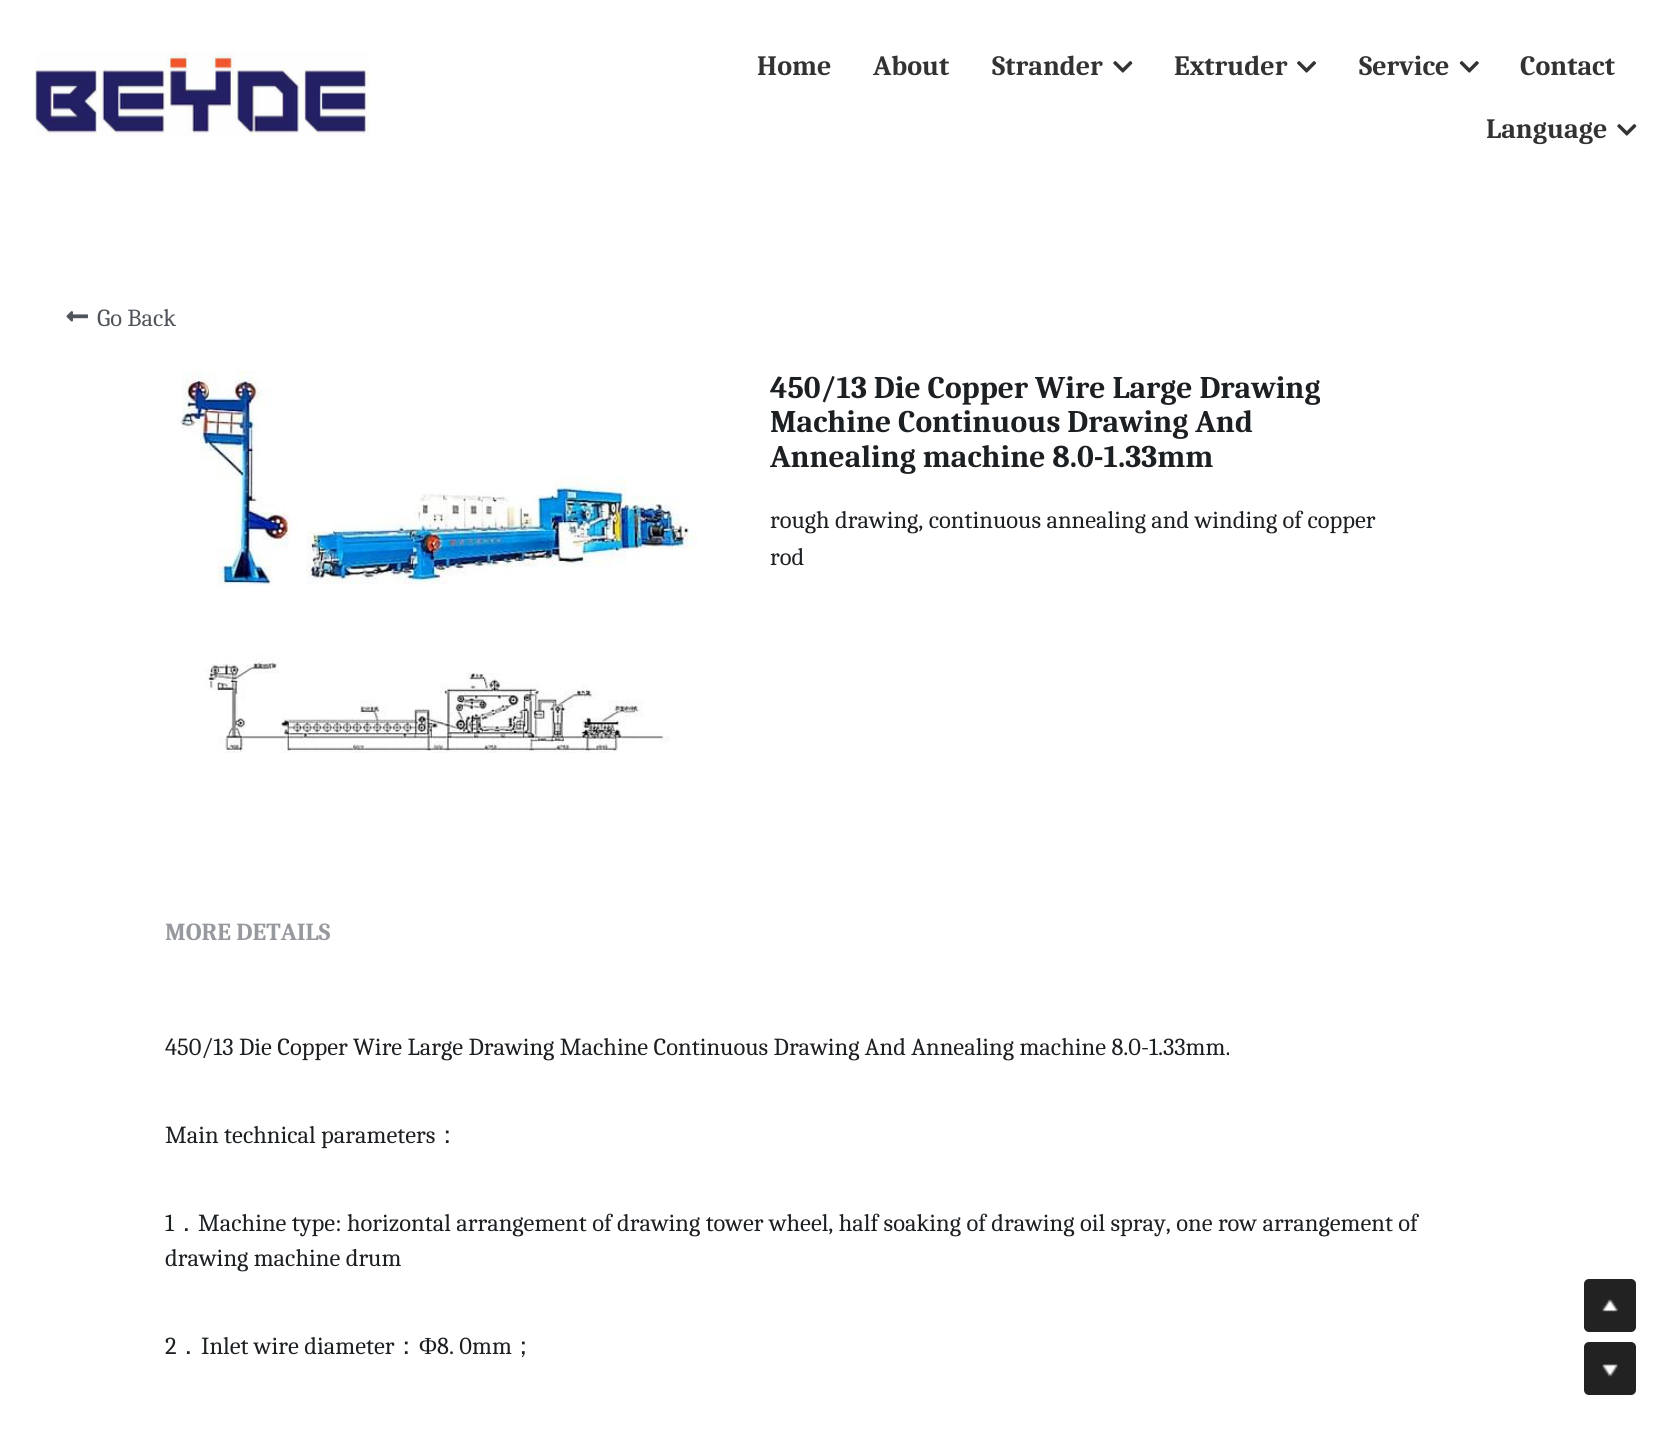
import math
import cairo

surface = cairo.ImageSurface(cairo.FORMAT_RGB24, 1670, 1429)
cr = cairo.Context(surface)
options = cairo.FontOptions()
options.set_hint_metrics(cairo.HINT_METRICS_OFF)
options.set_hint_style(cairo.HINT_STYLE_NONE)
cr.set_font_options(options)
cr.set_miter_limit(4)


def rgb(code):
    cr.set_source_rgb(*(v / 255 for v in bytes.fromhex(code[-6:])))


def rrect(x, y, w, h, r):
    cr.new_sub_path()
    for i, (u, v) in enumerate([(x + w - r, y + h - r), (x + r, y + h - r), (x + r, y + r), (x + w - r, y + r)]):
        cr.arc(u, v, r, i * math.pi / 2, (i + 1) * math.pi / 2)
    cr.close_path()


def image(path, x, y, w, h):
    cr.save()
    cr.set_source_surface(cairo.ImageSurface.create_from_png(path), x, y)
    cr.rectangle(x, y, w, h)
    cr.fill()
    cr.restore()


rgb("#ffffff")
cr.paint()
image("img/1.png", 35, 52, 335, 85)
image("img/2.png", 1113, 61, 20, 12)
image("img/3.png", 1297, 61, 20, 12)
image("img/4.png", 1459, 61, 20, 12)
image("img/2.png", 1617, 124, 20, 12)
image("img/5.png", 66, 311, 22, 11)
image("img/6.png", 178, 371, 519, 382)
rgb("#222222")
rrect(1584, 1279, 52, 53, 5)
cr.fill()
image("img/7.png", 1602, 1299, 16, 13)
rrect(1584, 1342, 52, 53, 5)
cr.fill()
image("img/8.png", 1602, 1364, 16, 13)
cr.select_font_face("Caladea", cairo.FONT_SLANT_NORMAL, cairo.FONT_WEIGHT_BOLD)
cr.set_font_size(28)
rgb("#333333")
for x, y, s in [
    (757, 75, "Home"),
    (873, 75, "About"),
    (992, 75, "Strander"),
    (1174, 75, "Extruder"),
    (1359, 75, "Service"),
    (1520, 75, "Contact"),
    (1486, 138, "Language"),
]:
    cr.move_to(x, y)
    cr.show_text(s)
cr.select_font_face("Caladea")
cr.set_font_size(24.5)
rgb("#50555c")
cr.move_to(97, 326)
cr.show_text("Go Back")
cr.select_font_face("Caladea", cairo.FONT_SLANT_NORMAL, cairo.FONT_WEIGHT_BOLD)
cr.set_font_size(31.5)
rgb("#1d2023")
for x, y, s in [
    (770, 398, "450/13 Die Copper Wire Large Drawing"),
    (770, 432, "Machine Continuous Drawing And"),
    (770, 467, "Annealing machine 8.0-1.33mm"),
]:
    cr.move_to(x, y)
    cr.show_text(s)
cr.select_font_face("Caladea")
cr.set_font_size(24.5)
cr.move_to(770, 528)
cr.show_text("rough drawing, continuous annealing and winding of copper")
cr.move_to(770, 565)
cr.show_text("rod")
cr.select_font_face("Caladea", cairo.FONT_SLANT_NORMAL, cairo.FONT_WEIGHT_BOLD)
rgb("#96999d")
cr.move_to(165, 940)
cr.show_text("MORE DETAILS")
cr.select_font_face("Caladea")
rgb("#1d2023")
cr.move_to(165, 1055)
cr.show_text("450/13 Die Copper Wire Large Drawing Machine Continuous Drawing And Annealing machine 8.0-1.33mm.")
cr.move_to(165, 1143)
cr.show_text("Main technical parameters")
cr.select_font_face("WenQuanYi Zen Hei Medium")
cr.move_to(435, 1143)
cr.show_text("：")
cr.select_font_face("Caladea")
cr.move_to(165, 1231)
cr.show_text("1")
cr.select_font_face("WenQuanYi Zen Hei Medium")
cr.move_to(174, 1231)
cr.show_text("．")
cr.select_font_face("Caladea")
for x, y, s in [
    (198, 1231, "Machine type: horizontal arrangement of drawing tower wheel, half soaking of drawing oil spray, one row arrangement of"),
    (165, 1266, "drawing machine drum"),
    (165, 1354, "2"),
]:
    cr.move_to(x, y)
    cr.show_text(s)
cr.select_font_face("WenQuanYi Zen Hei Medium")
cr.move_to(176, 1354)
cr.show_text("．")
cr.select_font_face("Caladea")
cr.move_to(201, 1354)
cr.show_text("Inlet wire diameter")
cr.select_font_face("WenQuanYi Zen Hei Medium")
cr.move_to(394, 1354)
cr.show_text("：")
cr.select_font_face("Liberation Serif")
cr.move_to(419, 1354)
cr.show_text("Φ")
cr.select_font_face("Caladea")
cr.move_to(437, 1354)
cr.show_text("8. 0mm")
cr.select_font_face("WenQuanYi Zen Hei Medium")
cr.move_to(511, 1354)
cr.show_text("；")
surface.write_to_png("page.png")
